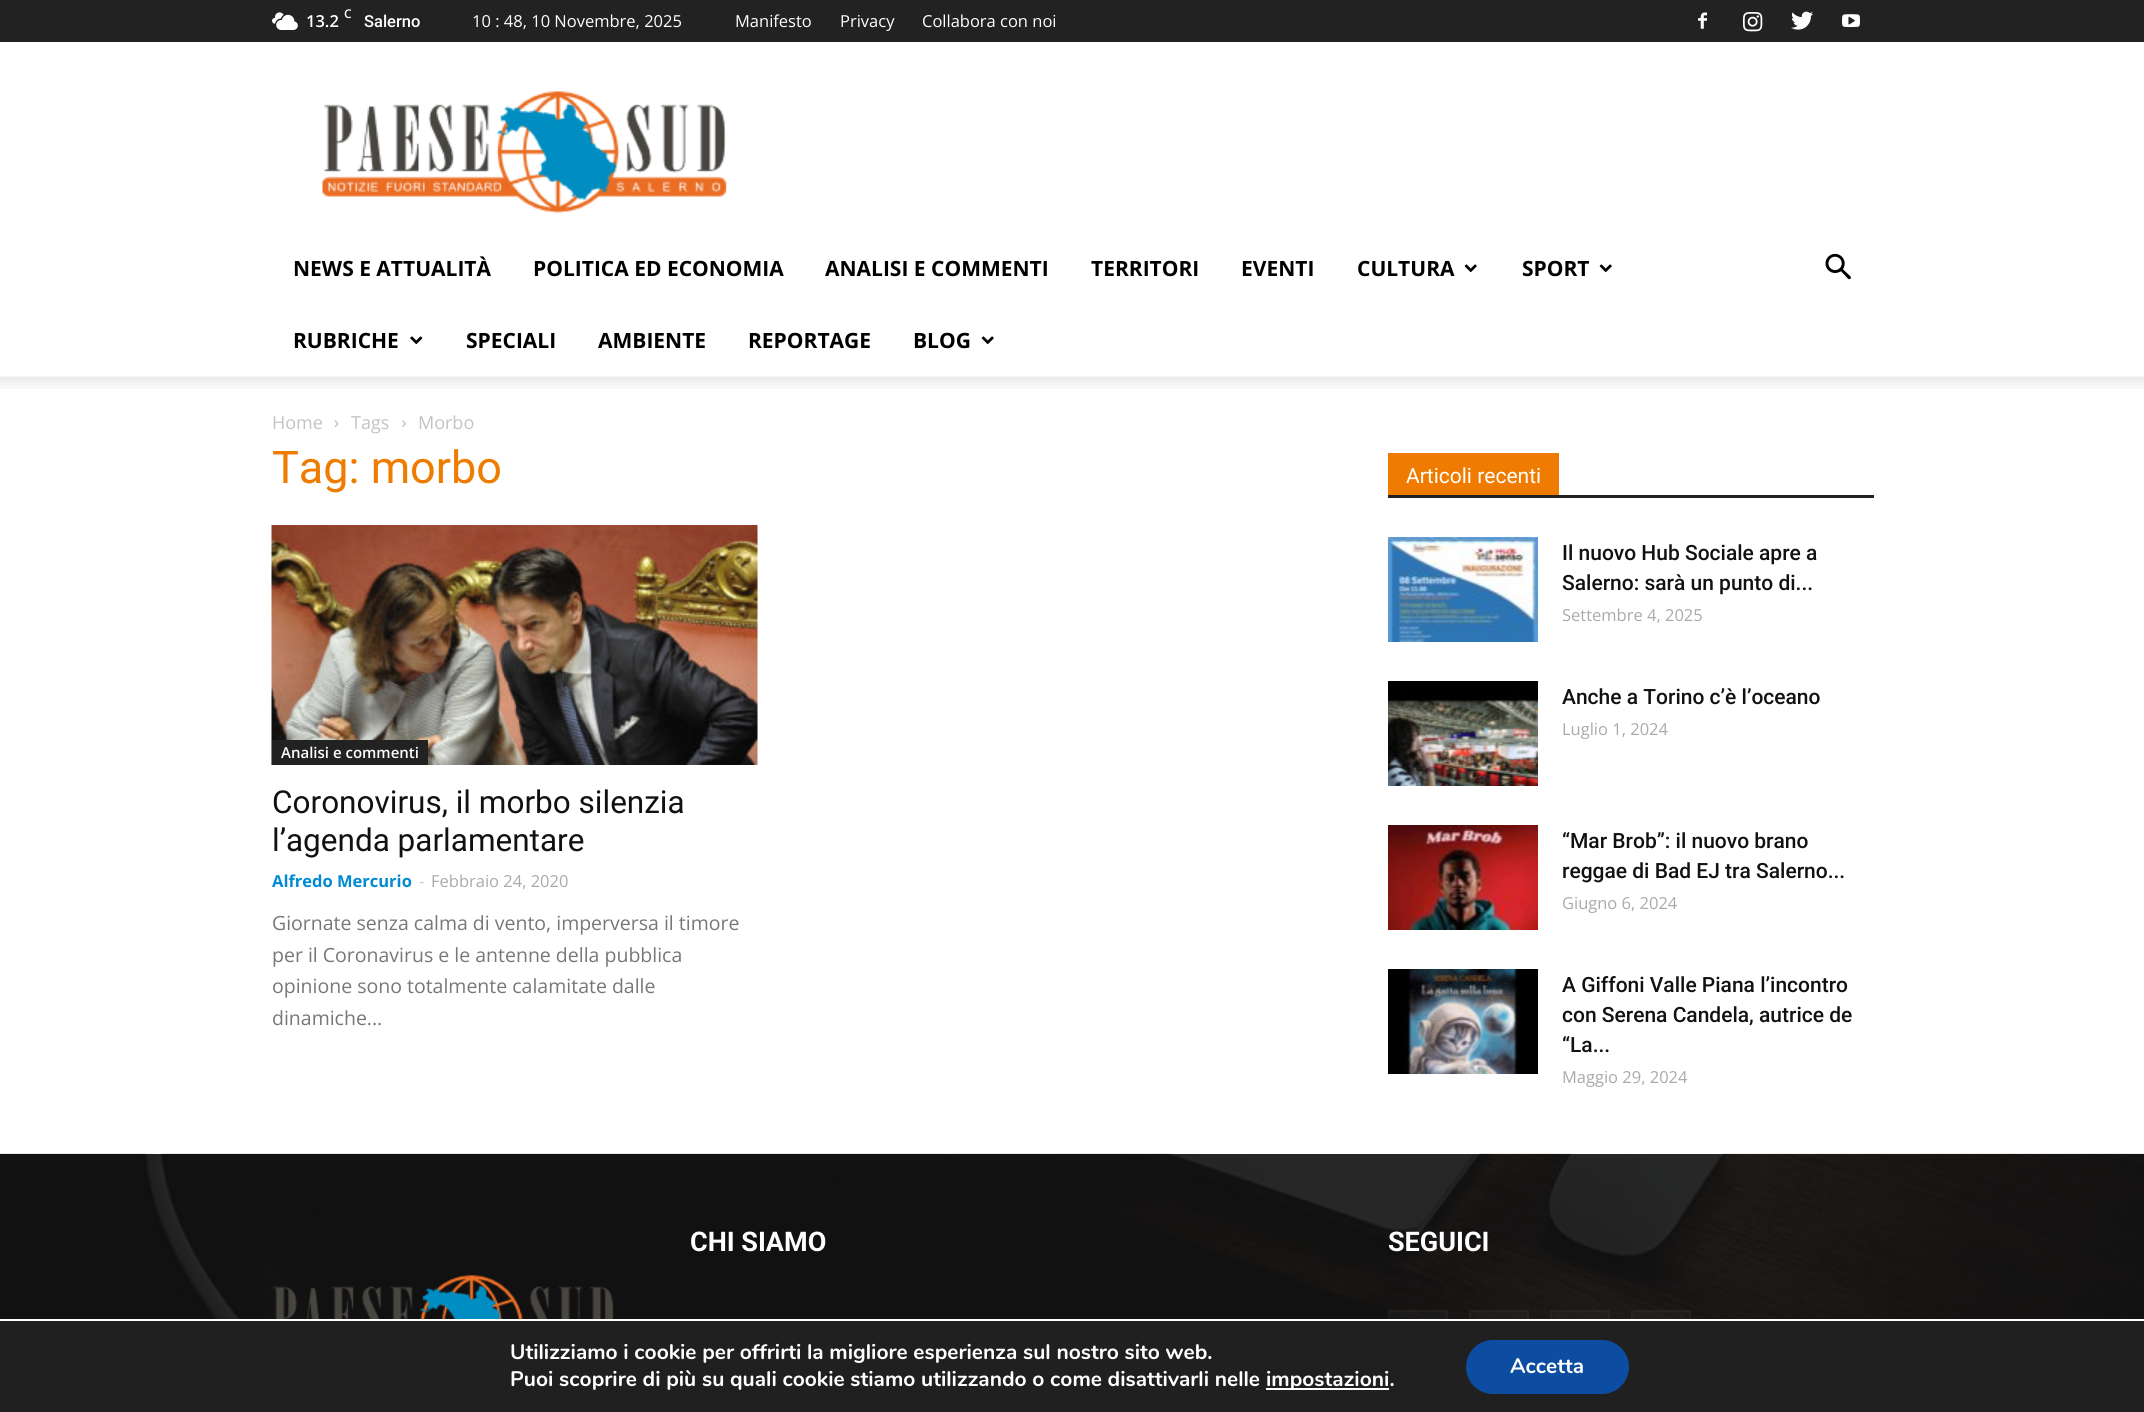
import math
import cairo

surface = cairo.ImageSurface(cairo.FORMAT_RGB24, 2144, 1412)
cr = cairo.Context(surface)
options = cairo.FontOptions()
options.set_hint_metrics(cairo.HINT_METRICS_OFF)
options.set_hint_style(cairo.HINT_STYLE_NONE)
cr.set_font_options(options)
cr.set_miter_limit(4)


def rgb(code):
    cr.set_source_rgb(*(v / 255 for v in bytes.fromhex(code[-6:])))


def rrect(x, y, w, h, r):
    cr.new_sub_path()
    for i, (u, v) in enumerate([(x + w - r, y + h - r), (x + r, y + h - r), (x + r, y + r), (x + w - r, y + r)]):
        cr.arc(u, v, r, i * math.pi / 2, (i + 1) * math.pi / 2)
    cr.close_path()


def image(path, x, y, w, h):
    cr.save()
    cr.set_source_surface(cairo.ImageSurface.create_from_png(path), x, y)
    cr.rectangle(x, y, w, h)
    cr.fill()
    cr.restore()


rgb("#ffffff")
cr.paint()
rgb("#222222")
cr.rectangle(0, 0, 2144, 42)
cr.fill()
image("img/1.png", 272, 12, 26, 18)
image("img/2.png", 1698, 12, 9, 17)
image("img/3.png", 1743, 12, 20, 20)
image("img/4.png", 1791, 11, 22, 19)
image("img/5.png", 1842, 14, 18, 14)
image("img/6.png", 322, 91, 405, 123)
image("img/7.png", 1464, 264, 13, 9)
image("img/7.png", 1599, 264, 13, 9)
image("img/8.png", 410, 336, 13, 9)
image("img/7.png", 981, 336, 13, 9)
image("img/9.png", 1825, 253, 26, 27)
image("img/10.png", 0, 376, 2144, 13)
image("img/11.png", 334, 420, 5, 8)
image("img/12.png", 402, 420, 4, 8)
image("img/13.png", 271, 525, 487, 240)
for x, y, w, h, color in [
    (272, 740, 156, 25, "#222222"),
    (1388, 495, 486, 3, "#222222"),
    (1388, 453, 171, 42, "#ef7c00"),
]:
    rgb(color)
    cr.rectangle(x, y, w, h)
    cr.fill()
image("img/14.png", 1388, 537, 150, 105)
image("img/15.png", 1388, 681, 150, 105)
image("img/16.png", 1388, 825, 150, 105)
image("img/17.png", 1388, 969, 150, 105)
rgb("#111111")
cr.rectangle(0, 1154, 2144, 165)
cr.fill()
image("img/18.png", 0, 1153, 2144, 166)
cr.set_source_rgba(1, 1, 1, 0.03)
cr.rectangle(1388, 1310, 60, 9)
cr.fill()
cr.rectangle(1389, 1311, 58, 58)
cr.stroke()
cr.rectangle(1469, 1310, 60, 9)
cr.fill()
cr.rectangle(1470, 1311, 58, 58)
cr.stroke()
cr.rectangle(1550, 1310, 60, 9)
cr.fill()
cr.rectangle(1551, 1311, 58, 58)
cr.stroke()
cr.rectangle(1631, 1310, 60, 9)
cr.fill()
cr.rectangle(1632, 1311, 58, 58)
cr.stroke()
image("img/19.png", 272, 1275, 342, 44)
rgb("#202020")
cr.rectangle(0, 1321, 2144, 91)
cr.fill()
rgb("#ffffff")
cr.rectangle(1266, 1388, 123, 2)
cr.fill()
rgb("#0c4da2")
rrect(1466, 1340, 163, 54, 27)
cr.fill()
cr.select_font_face("Open Sans SemiBold")
cr.set_font_size(12)
rgb("#ffffff")
cr.move_to(344, 18)
cr.show_text("C")
cr.set_font_size(16.5)
cr.move_to(306, 27)
cr.show_text("13.2")
cr.select_font_face("Roboto Medium")
cr.move_to(364, 27)
cr.show_text("Salerno")
cr.select_font_face("Open Sans")
for x, y, s in [
    (472, 27, "10 : 48, 10 Novembre, 2025"),
    (735, 27, "Manifesto"),
    (840, 27, "Privacy"),
    (922, 27, "Collabora con noi"),
]:
    cr.move_to(x, y)
    cr.show_text(s)
cr.select_font_face("Open Sans", cairo.FONT_SLANT_NORMAL, cairo.FONT_WEIGHT_BOLD)
cr.set_font_size(21)
rgb("#000000")
for x, y, s in [
    (293, 276, "NEWS E ATTUALITÀ"),
    (533, 276, "POLITICA ED ECONOMIA"),
    (825, 276, "ANALISI E COMMENTI"),
    (1091, 276, "TERRITORI"),
    (1241, 276, "EVENTI"),
    (1357, 276, "CULTURA"),
    (1522, 276, "SPORT"),
    (293, 348, "RUBRICHE"),
    (466, 348, "SPECIALI"),
    (598, 348, "AMBIENTE"),
    (748, 348, "REPORTAGE"),
    (913, 348, "BLOG"),
]:
    cr.move_to(x, y)
    cr.show_text(s)
cr.select_font_face("Open Sans")
cr.set_font_size(18)
rgb("#c3c3c3")
for x, y, s in [
    (272, 429, "Home"),
    (351, 429, "Tags"),
    (418, 429, "Morbo"),
]:
    cr.move_to(x, y)
    cr.show_text(s)
cr.select_font_face("Roboto")
cr.set_font_size(45)
rgb("#ef7c00")
cr.move_to(272, 483)
cr.show_text("Tag: morbo")
cr.select_font_face("Open Sans SemiBold")
cr.set_font_size(15)
rgb("#ffffff")
cr.move_to(281, 758)
cr.show_text("Analisi e commenti")
cr.select_font_face("Roboto")
cr.set_font_size(31.5)
rgb("#111111")
cr.move_to(272, 813)
cr.show_text("Coronovirus, il morbo silenzia")
cr.move_to(272, 851)
cr.show_text("l’agenda parlamentare")
cr.select_font_face("Open Sans", cairo.FONT_SLANT_NORMAL, cairo.FONT_WEIGHT_BOLD)
cr.set_font_size(16.5)
rgb("#008bd2")
cr.move_to(272, 887)
cr.show_text("Alfredo Mercurio")
cr.select_font_face("Open Sans")
rgb("#cccccc")
cr.move_to(419, 887)
cr.show_text("-")
rgb("#aaaaaa")
cr.move_to(431, 887)
cr.show_text("Febbraio 24, 2020")
cr.set_font_size(19.5)
rgb("#777777")
for x, y, s in [
    (272, 930, "Giornate senza calma di vento, imperversa il timore"),
    (272, 962, "per il Coronavirus e le antenne della pubblica"),
    (272, 993, "opinione sono totalmente calamitate dalle"),
    (272, 1025, "dinamiche..."),
]:
    cr.move_to(x, y)
    cr.show_text(s)
cr.select_font_face("Roboto")
cr.set_font_size(21)
rgb("#ffffff")
cr.move_to(1406, 483)
cr.show_text("Articoli recenti")
cr.select_font_face("Roboto Medium")
rgb("#111111")
cr.move_to(1562, 560)
cr.show_text("Il nuovo Hub Sociale apre a")
cr.move_to(1562, 590)
cr.show_text("Salerno: sarà un punto di...")
cr.select_font_face("Open Sans")
cr.set_font_size(16.5)
rgb("#aaaaaa")
cr.move_to(1562, 621)
cr.show_text("Settembre 4, 2025")
cr.select_font_face("Roboto Medium")
cr.set_font_size(21)
rgb("#111111")
cr.move_to(1562, 704)
cr.show_text("Anche a Torino c’è l’oceano")
cr.select_font_face("Open Sans")
cr.set_font_size(16.5)
rgb("#aaaaaa")
cr.move_to(1562, 735)
cr.show_text("Luglio 1, 2024")
cr.select_font_face("Roboto Medium")
cr.set_font_size(21)
rgb("#111111")
cr.move_to(1562, 848)
cr.show_text("“Mar Brob”: il nuovo brano")
cr.move_to(1562, 878)
cr.show_text("reggae di Bad EJ tra Salerno...")
cr.select_font_face("Open Sans")
cr.set_font_size(16.5)
rgb("#aaaaaa")
cr.move_to(1562, 909)
cr.show_text("Giugno 6, 2024")
cr.select_font_face("Roboto Medium")
cr.set_font_size(21)
rgb("#111111")
for x, y, s in [
    (1562, 992, "A Giffoni Valle Piana l’incontro"),
    (1562, 1022, "con Serena Candela, autrice de"),
    (1562, 1052, "“La..."),
]:
    cr.move_to(x, y)
    cr.show_text(s)
cr.select_font_face("Open Sans")
cr.set_font_size(16.5)
rgb("#aaaaaa")
cr.move_to(1562, 1083)
cr.show_text("Maggio 29, 2024")
cr.select_font_face("Roboto", cairo.FONT_SLANT_NORMAL, cairo.FONT_WEIGHT_BOLD)
cr.set_font_size(27)
rgb("#ffffff")
cr.move_to(690, 1251)
cr.show_text("CHI SIAMO")
cr.move_to(1388, 1251)
cr.show_text("SEGUICI")
cr.select_font_face("Nunito", cairo.FONT_SLANT_NORMAL, cairo.FONT_WEIGHT_BOLD)
cr.set_font_size(21)
for x, y, s in [
    (510, 1359, "Utilizziamo i cookie per offrirti la migliore esperienza sul nostro sito web."),
    (510, 1386, "Puoi scoprire di più su quali cookie stiamo utilizzando o come disattivarli nelle"),
    (1266, 1386, "impostazioni."),
    (1510, 1373, "Accetta"),
]:
    cr.move_to(x, y)
    cr.show_text(s)
surface.write_to_png("page.png")
